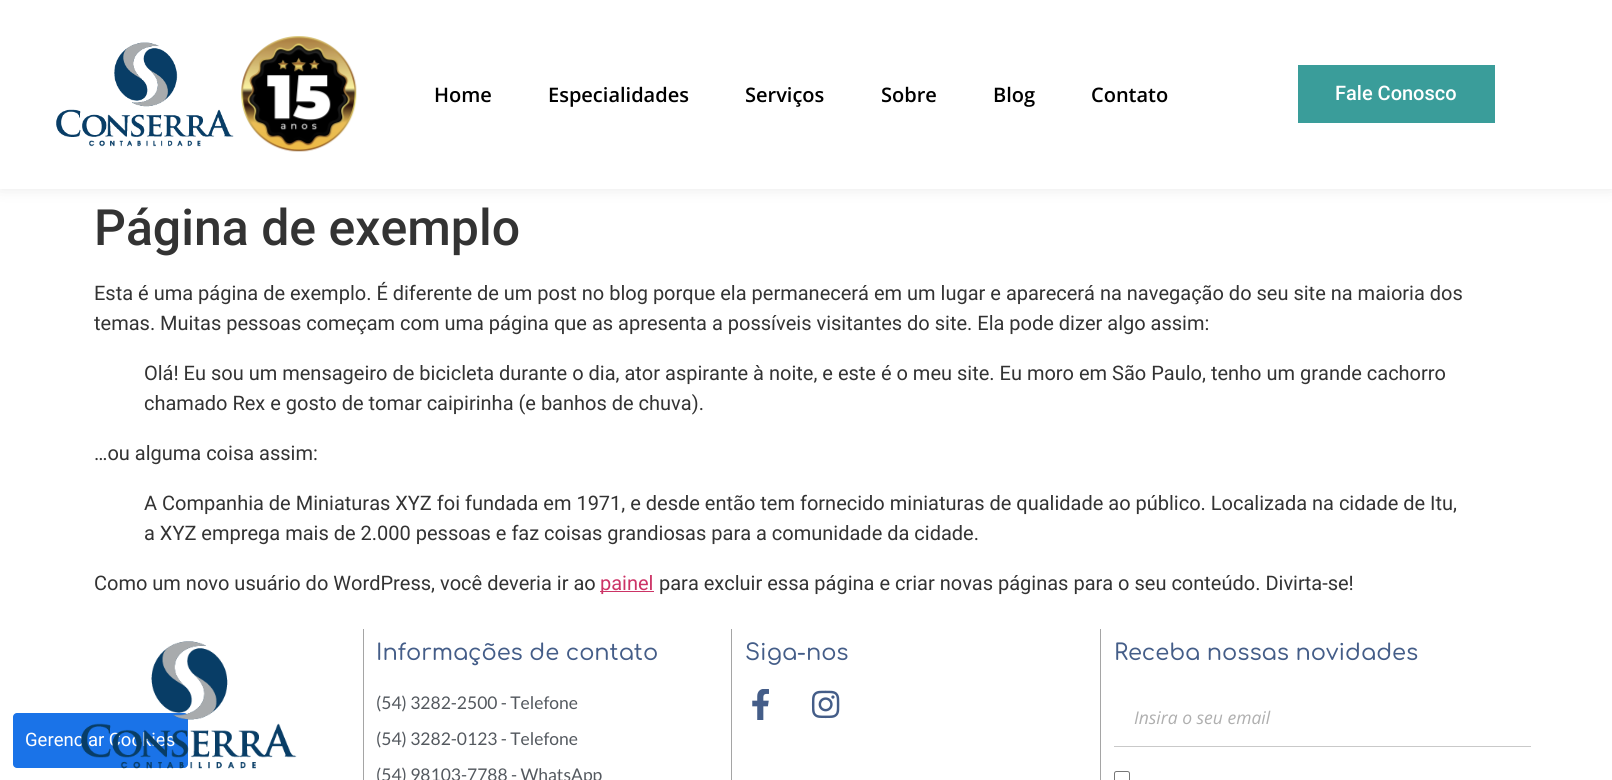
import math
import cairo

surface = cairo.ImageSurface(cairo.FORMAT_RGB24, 1612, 780)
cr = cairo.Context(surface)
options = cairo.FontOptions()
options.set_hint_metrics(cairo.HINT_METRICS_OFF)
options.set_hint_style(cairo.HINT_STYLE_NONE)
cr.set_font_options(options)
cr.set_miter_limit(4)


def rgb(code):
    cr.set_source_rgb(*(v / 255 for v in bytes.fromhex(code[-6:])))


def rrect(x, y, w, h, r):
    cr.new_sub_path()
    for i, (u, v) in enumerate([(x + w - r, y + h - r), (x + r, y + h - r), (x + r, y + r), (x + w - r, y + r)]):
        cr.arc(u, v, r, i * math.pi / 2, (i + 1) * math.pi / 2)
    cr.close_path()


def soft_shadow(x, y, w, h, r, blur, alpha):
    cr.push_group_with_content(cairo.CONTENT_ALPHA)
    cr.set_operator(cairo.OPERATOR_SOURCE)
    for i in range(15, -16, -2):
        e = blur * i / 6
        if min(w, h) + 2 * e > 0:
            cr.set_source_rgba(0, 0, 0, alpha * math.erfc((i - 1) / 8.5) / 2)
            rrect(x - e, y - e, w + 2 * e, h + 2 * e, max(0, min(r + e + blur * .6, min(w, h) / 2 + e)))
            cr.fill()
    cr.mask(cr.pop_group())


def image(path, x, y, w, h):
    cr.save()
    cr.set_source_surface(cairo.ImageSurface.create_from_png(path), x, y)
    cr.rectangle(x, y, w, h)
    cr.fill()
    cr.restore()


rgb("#ffffff")
cr.paint()
rgb("#000000")
soft_shadow(0, -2, 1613, 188, 0, 9, 0.12)
rgb("#ffffff")
cr.rectangle(0, 0, 1612, 189)
cr.fill()
image("img/1.png", 56, 42, 178, 105)
image("img/2.png", 241, 36, 116, 116)
rgb("#3a9d9a")
cr.rectangle(1298, 65, 197, 58)
cr.fill()
rgb("#cc3366")
cr.rectangle(600, 591, 54, 1)
cr.fill()
rgb("#1a73e8")
rrect(13, 713, 175, 55, 4)
cr.fill()
for x, y, w, h, color in [
    (363, 629, 1, 151, "#a5a5a5"),
    (731, 629, 1, 151, "#a5a5a5"),
    (1100, 629, 1, 151, "#a5a5a5"),
]:
    rgb(color)
    cr.rectangle(x, y, w, h)
    cr.fill()
image("img/4.png", 752, 689, 17, 31)
image("img/5.png", 811, 690, 29, 29)
rgb("#c9c9c9")
cr.rectangle(1114, 746, 417, 1)
cr.fill()
rrect(1114.5, 771.5, 15, 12, 2)
rgb("#767676")
cr.set_line_width(1)
cr.stroke()
cr.select_font_face("Open Sans SemiBold")
cr.set_font_size(20)
rgb("#000000")
for x, y, s in [
    (434, 102, "Home"),
    (548, 102, "Especialidades"),
    (745, 102, "Serviços"),
    (881, 102, "Sobre"),
    (993, 102, "Blog"),
    (1091, 102, "Contato"),
]:
    cr.move_to(x, y)
    cr.show_text(s)
cr.select_font_face("Roboto Medium")
rgb("#ffffff")
cr.move_to(1335, 100)
cr.show_text("Fale Conosco")
cr.set_font_size(50)
rgb("#333333")
cr.move_to(94, 245)
cr.show_text("Página de exemplo")
cr.select_font_face("Roboto")
cr.set_font_size(20)
for x, y, s in [
    (94, 300, "Esta é uma página de exemplo. É diferente de um post no blog porque ela permanecerá em um lugar e aparecerá na navegação do seu site na maioria dos"),
    (94, 330, "temas. Muitas pessoas começam com uma página que as apresenta a possíveis visitantes do site. Ela pode dizer algo assim:"),
    (144, 380, "Olá! Eu sou um mensageiro de bicicleta durante o dia, ator aspirante à noite, e este é o meu site. Eu moro em São Paulo, tenho um grande cachorro"),
    (144, 410, "chamado Rex e gosto de tomar caipirinha (e banhos de chuva)."),
    (94, 460, "…ou alguma coisa assim:"),
    (144, 510, "A Companhia de Miniaturas XYZ foi fundada em 1971, e desde então tem fornecido miniaturas de qualidade ao público. Localizada na cidade de Itu,"),
    (144, 540, "a XYZ emprega mais de 2.000 pessoas e faz coisas grandiosas para a comunidade da cidade."),
    (94, 590, "Como um novo usuário do WordPress, você deveria ir ao"),
]:
    cr.move_to(x, y)
    cr.show_text(s)
rgb("#cc3366")
cr.move_to(600, 590)
cr.show_text("painel")
rgb("#333333")
cr.move_to(659, 590)
cr.show_text("para excluir essa página e criar novas páginas para o seu conteúdo. Divirta-se!")
cr.set_font_size(18.5)
rgb("#ffffff")
cr.move_to(25, 746)
cr.show_text("Gerenciar Cookies")
image("img/3.png", 81, 641, 216, 128)
cr.select_font_face("Comfortaa Medium")
cr.set_font_size(22.5)
rgb("#445d88")
cr.move_to(376, 660)
cr.show_text("Informações de contato")
cr.select_font_face("Lato")
cr.set_font_size(17.5)
rgb("#54595f")
for x, y, s in [
    (376, 709, "(54) 3282-2500 - Telefone"),
    (376, 745, "(54) 3282-0123 - Telefone"),
    (376, 781, "(54) 98103-7788 - WhatsApp"),
]:
    cr.move_to(x, y)
    cr.show_text(s)
cr.select_font_face("Comfortaa Medium")
cr.set_font_size(22.5)
rgb("#445d88")
cr.move_to(745, 660)
cr.show_text("Siga-nos")
cr.move_to(1114, 660)
cr.show_text("Receba nossas novidades")
cr.select_font_face("Open Sans", cairo.FONT_SLANT_ITALIC)
cr.set_font_size(17.5)
rgb("#afafaf")
cr.move_to(1134, 724)
cr.show_text("Insira o seu email")
surface.write_to_png("page.png")
